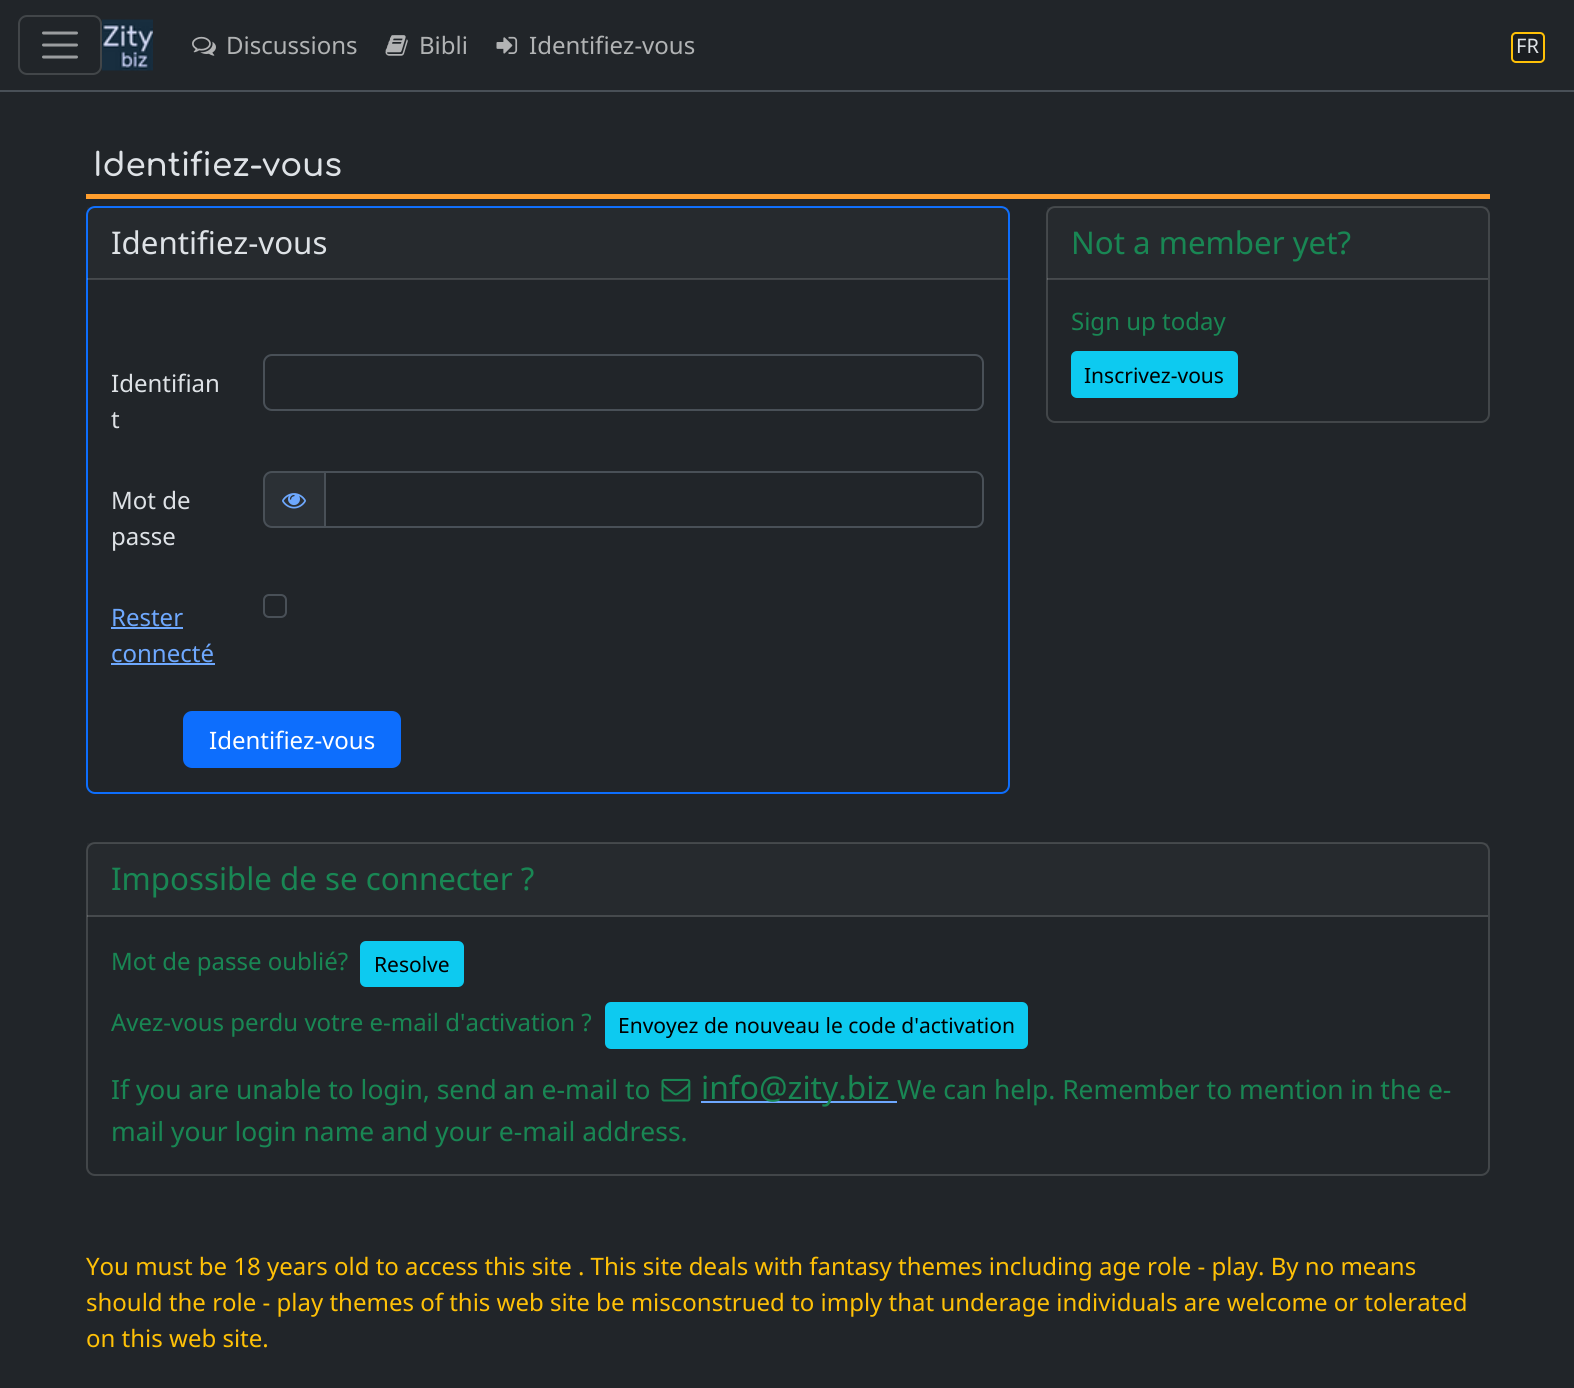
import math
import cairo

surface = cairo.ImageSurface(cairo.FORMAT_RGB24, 1574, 1388)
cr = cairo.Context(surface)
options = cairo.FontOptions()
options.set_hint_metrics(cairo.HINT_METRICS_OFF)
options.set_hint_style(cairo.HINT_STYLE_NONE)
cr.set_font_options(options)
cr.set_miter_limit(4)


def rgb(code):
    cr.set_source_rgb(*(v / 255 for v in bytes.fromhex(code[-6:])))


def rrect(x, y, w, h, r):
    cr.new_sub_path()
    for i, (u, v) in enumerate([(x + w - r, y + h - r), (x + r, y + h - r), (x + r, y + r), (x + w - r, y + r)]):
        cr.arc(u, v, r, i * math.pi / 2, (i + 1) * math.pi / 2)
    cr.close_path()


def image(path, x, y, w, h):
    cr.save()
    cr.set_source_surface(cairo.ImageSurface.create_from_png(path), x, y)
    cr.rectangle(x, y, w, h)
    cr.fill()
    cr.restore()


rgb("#212529")
cr.paint()
rgb("#495057")
cr.rectangle(0, 90, 1574, 2)
cr.fill()
rrect(19, 16, 82, 58, 8)
rgb("#424649")
cr.stroke()
cr.new_path()
cr.move_to(43.5, 33)
cr.line_to(76.5, 33)
cr.move_to(43.5, 45)
cr.line_to(76.5, 45)
cr.move_to(43.5, 57)
cr.line_to(76.5, 57)
rgb("#9b9d9f")
cr.set_line_width(3)
cr.set_line_cap(cairo.LINE_CAP_ROUND)
cr.stroke()
image("img/1.png", 102, 19, 51, 52)
image("img/2.png", 192, 36, 24, 20)
image("img/3.png", 385, 35, 23, 21)
image("img/4.png", 496, 36, 22, 18)
rgb("#1a1d21")
rrect(1512, 33, 32, 29, 4)
cr.fill_preserve()
rgb("#ffc107")
cr.set_line_width(2)
cr.set_line_cap(cairo.LINE_CAP_BUTT)
cr.stroke()
rgb("#ff9e2d")
cr.rectangle(86, 194, 1404, 5)
cr.fill()
rrect(87, 207, 922, 586, 8)
rgb("#0d6efd")
cr.stroke()
cr.set_source_rgba(0.871, 0.886, 0.902, 0.03)
cr.rectangle(87, 207, 921, 72)
cr.fill()
cr.set_source_rgba(1, 1, 1, 0.15)
cr.rectangle(87, 278, 921, 2)
cr.fill()
rrect(264, 355, 719, 55, 8)
rgb("#495057")
cr.stroke()
rgb("#2b3035")
cr.new_path()
cr.move_to(272, 472)
cr.line_to(325, 472)
cr.line_to(325, 527)
cr.line_to(272, 527)
cr.curve_to(267.5, 527, 264, 523.5, 264, 519)
cr.line_to(264, 480)
cr.curve_to(264, 475.5, 267.5, 472, 272, 472)
cr.close_path()
cr.fill_preserve()
rgb("#495057")
cr.stroke()
image("img/5.png", 282, 493, 24, 16)
cr.new_path()
cr.move_to(325, 472)
cr.line_to(975, 472)
cr.curve_to(979.5, 472, 983, 475.5, 983, 480)
cr.line_to(983, 519)
cr.curve_to(983, 523.5, 979.5, 527, 975, 527)
cr.line_to(325, 527)
cr.close_path()
cr.stroke()
rgb("#6ea8fe")
cr.rectangle(111, 627, 72, 2)
cr.fill()
cr.rectangle(111, 663, 104, 2)
cr.fill()
rrect(264, 595, 22, 22, 5)
rgb("#495057")
cr.stroke()
rgb("#0d6efd")
rrect(184, 712, 216, 55, 8)
cr.fill_preserve()
cr.stroke()
rrect(1047, 207, 442, 215, 8)
rgb("#424649")
cr.stroke()
cr.set_source_rgba(0.871, 0.886, 0.902, 0.03)
cr.rectangle(1047, 207, 441, 72)
cr.fill()
cr.set_source_rgba(1, 1, 1, 0.15)
cr.rectangle(1047, 278, 441, 2)
cr.fill()
rgb("#0dcaf0")
rrect(1072, 352, 165, 45, 5)
cr.fill_preserve()
cr.stroke()
rrect(87, 843, 1402, 332, 8)
rgb("#424649")
cr.stroke()
cr.set_source_rgba(0.871, 0.886, 0.902, 0.03)
cr.rectangle(87, 843, 1401, 74)
cr.fill()
cr.set_source_rgba(1, 1, 1, 0.15)
cr.rectangle(87, 915, 1401, 2)
cr.fill()
rgb("#0dcaf0")
rrect(361, 942, 102, 44, 5)
cr.fill_preserve()
cr.stroke()
rrect(606, 1003, 421, 45, 5)
cr.fill_preserve()
cr.stroke()
image("img/6.png", 661, 1078, 30, 24)
rgb("#6ea8fe")
cr.rectangle(701, 1101, 196, 2)
cr.fill()
cr.select_font_face("Noto Sans")
cr.set_font_size(24)
rgb("#b1b3b4")
for x, y, s in [
    (226, 54, "Discussions"),
    (419, 54, "Bibli"),
    (529, 54, "Identifiez-vous"),
]:
    cr.move_to(x, y)
    cr.show_text(s)
cr.set_font_size(20)
rgb("#dee2e6")
cr.move_to(1516, 53)
cr.show_text("FR")
cr.select_font_face("Comfortaa SemiBold")
cr.set_font_size(32.5)
cr.move_to(93, 176)
cr.show_text("Identifiez-vous")
cr.select_font_face("Noto Sans")
cr.set_font_size(31.25)
cr.move_to(111, 254)
cr.show_text("Identifiez-vous")
cr.set_font_size(24)
for x, y, s in [
    (111, 392, "Identifian"),
    (111, 428, "t"),
    (111, 509, "Mot de"),
    (111, 545, "passe"),
]:
    cr.move_to(x, y)
    cr.show_text(s)
rgb("#6ea8fe")
cr.move_to(111, 626)
cr.show_text("Rester")
cr.move_to(111, 662)
cr.show_text("connecté")
rgb("#ffffff")
cr.move_to(209, 749)
cr.show_text("Identifiez-vous")
cr.set_font_size(31.25)
rgb("#198754")
cr.move_to(1071, 254)
cr.show_text("Not a member yet?")
cr.set_font_size(24)
cr.move_to(1071, 330)
cr.show_text("Sign up today")
cr.set_font_size(21)
rgb("#000000")
cr.move_to(1084, 383)
cr.show_text("Inscrivez-vous")
cr.set_font_size(31.25)
rgb("#198754")
cr.move_to(111, 890)
cr.show_text("Impossible de se connecter ?")
cr.set_font_size(24)
cr.move_to(111, 970)
cr.show_text("Mot de passe oublié?")
cr.set_font_size(21)
rgb("#000000")
cr.move_to(374, 972)
cr.show_text("Resolve")
cr.set_font_size(24)
rgb("#198754")
cr.move_to(111, 1031)
cr.show_text("Avez-vous perdu votre e-mail d'activation ?")
cr.set_font_size(21)
rgb("#000000")
cr.move_to(618, 1033)
cr.show_text("Envoyez de nouveau le code d'activation")
cr.set_font_size(26.4)
rgb("#198754")
cr.move_to(111, 1099)
cr.show_text("If you are unable to login, send an e-mail to")
cr.set_font_size(31.75)
cr.move_to(701, 1099)
cr.show_text("info@zity.biz")
cr.set_font_size(26.4)
cr.move_to(897, 1099)
cr.show_text("We can help. Remember to mention in the e-")
cr.move_to(111, 1141)
cr.show_text("mail your login name and your e-mail address.")
cr.set_font_size(24)
rgb("#ffc107")
for x, y, s in [
    (86, 1275, "You must be 18 years old to access this site . This site deals with fantasy themes including age role - play. By no means"),
    (86, 1311, "should the role - play themes of this web site be misconstrued to imply that underage individuals are welcome or tolerated"),
    (86, 1347, "on this web site."),
]:
    cr.move_to(x, y)
    cr.show_text(s)
surface.write_to_png("page.png")
